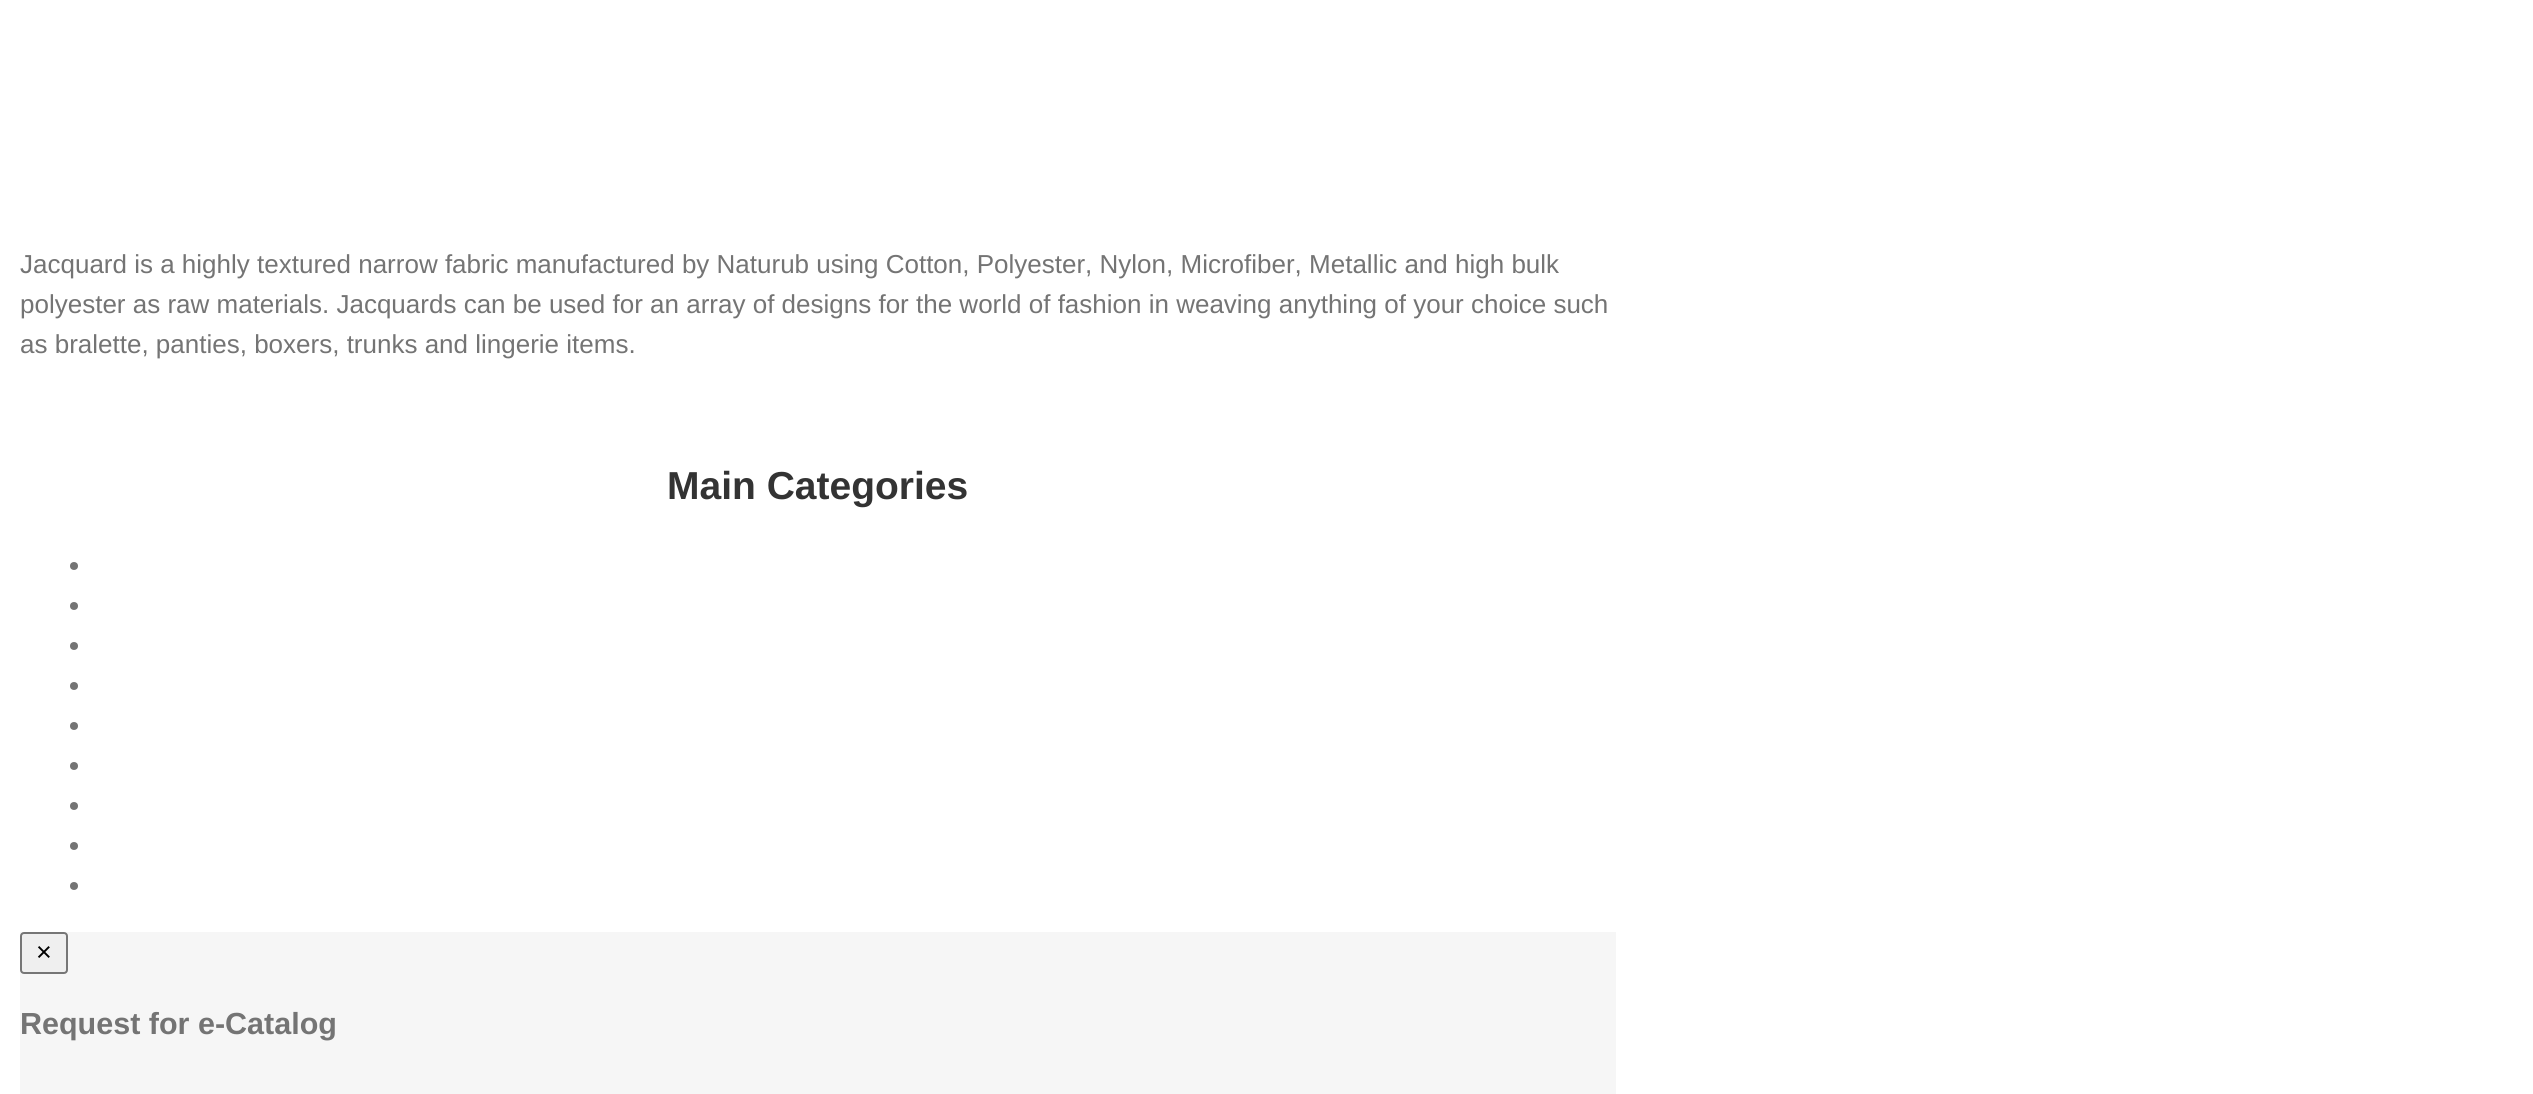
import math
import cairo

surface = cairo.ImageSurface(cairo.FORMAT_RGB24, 2533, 1094)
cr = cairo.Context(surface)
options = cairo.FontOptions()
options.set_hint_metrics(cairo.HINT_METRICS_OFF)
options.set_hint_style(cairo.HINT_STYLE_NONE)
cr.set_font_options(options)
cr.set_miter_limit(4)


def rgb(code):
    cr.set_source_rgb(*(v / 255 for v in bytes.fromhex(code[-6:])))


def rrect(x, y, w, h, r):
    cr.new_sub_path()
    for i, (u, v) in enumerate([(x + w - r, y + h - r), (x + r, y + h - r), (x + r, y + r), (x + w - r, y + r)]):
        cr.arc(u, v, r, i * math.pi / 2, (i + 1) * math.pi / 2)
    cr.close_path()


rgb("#ffffff")
cr.paint()
rgb("#747474")
cr.arc(74, 566, 4, 0, 2 * math.pi)
cr.fill()
cr.arc(74, 606, 4, 0, 2 * math.pi)
cr.fill()
cr.arc(74, 646, 4, 0, 2 * math.pi)
cr.fill()
cr.arc(74, 686, 4, 0, 2 * math.pi)
cr.fill()
cr.arc(74, 726, 4, 0, 2 * math.pi)
cr.fill()
cr.arc(74, 766, 4, 0, 2 * math.pi)
cr.fill()
cr.arc(74, 806, 4, 0, 2 * math.pi)
cr.fill()
cr.arc(74, 846, 4, 0, 2 * math.pi)
cr.fill()
cr.arc(74, 886, 4, 0, 2 * math.pi)
cr.fill()
rgb("#f6f6f6")
cr.rectangle(20, 932, 1596, 162)
cr.fill()
rgb("#efefef")
rrect(21, 933, 46, 40, 3)
cr.fill_preserve()
rgb("#767676")
cr.stroke()
cr.select_font_face("Liberation Sans")
cr.set_font_size(26)
rgb("#747474")
for x, y, s in [
    (20, 273, "Jacquard is a highly textured narrow fabric manufactured by Naturub using Cotton, Polyester, Nylon, Microfiber, Metallic and high bulk"),
    (20, 313, "polyester as raw materials. Jacquards can be used for an array of designs for the world of fashion in weaving anything of your choice such"),
    (20, 353, "as bralette, panties, boxers, trunks and lingerie items."),
]:
    cr.move_to(x, y)
    cr.show_text(s)
cr.select_font_face("Liberation Sans", cairo.FONT_SLANT_NORMAL, cairo.FONT_WEIGHT_BOLD)
cr.set_font_size(39)
rgb("#333333")
cr.move_to(667, 499)
cr.show_text("Main Categories")
cr.select_font_face("Liberation Sans")
cr.set_font_size(27)
rgb("#000000")
cr.move_to(36, 961)
cr.show_text("×")
cr.select_font_face("Liberation Sans", cairo.FONT_SLANT_NORMAL, cairo.FONT_WEIGHT_BOLD)
cr.set_font_size(30.5)
rgb("#747474")
cr.move_to(20, 1034)
cr.show_text("Request for e-Catalog")
surface.write_to_png("page.png")
